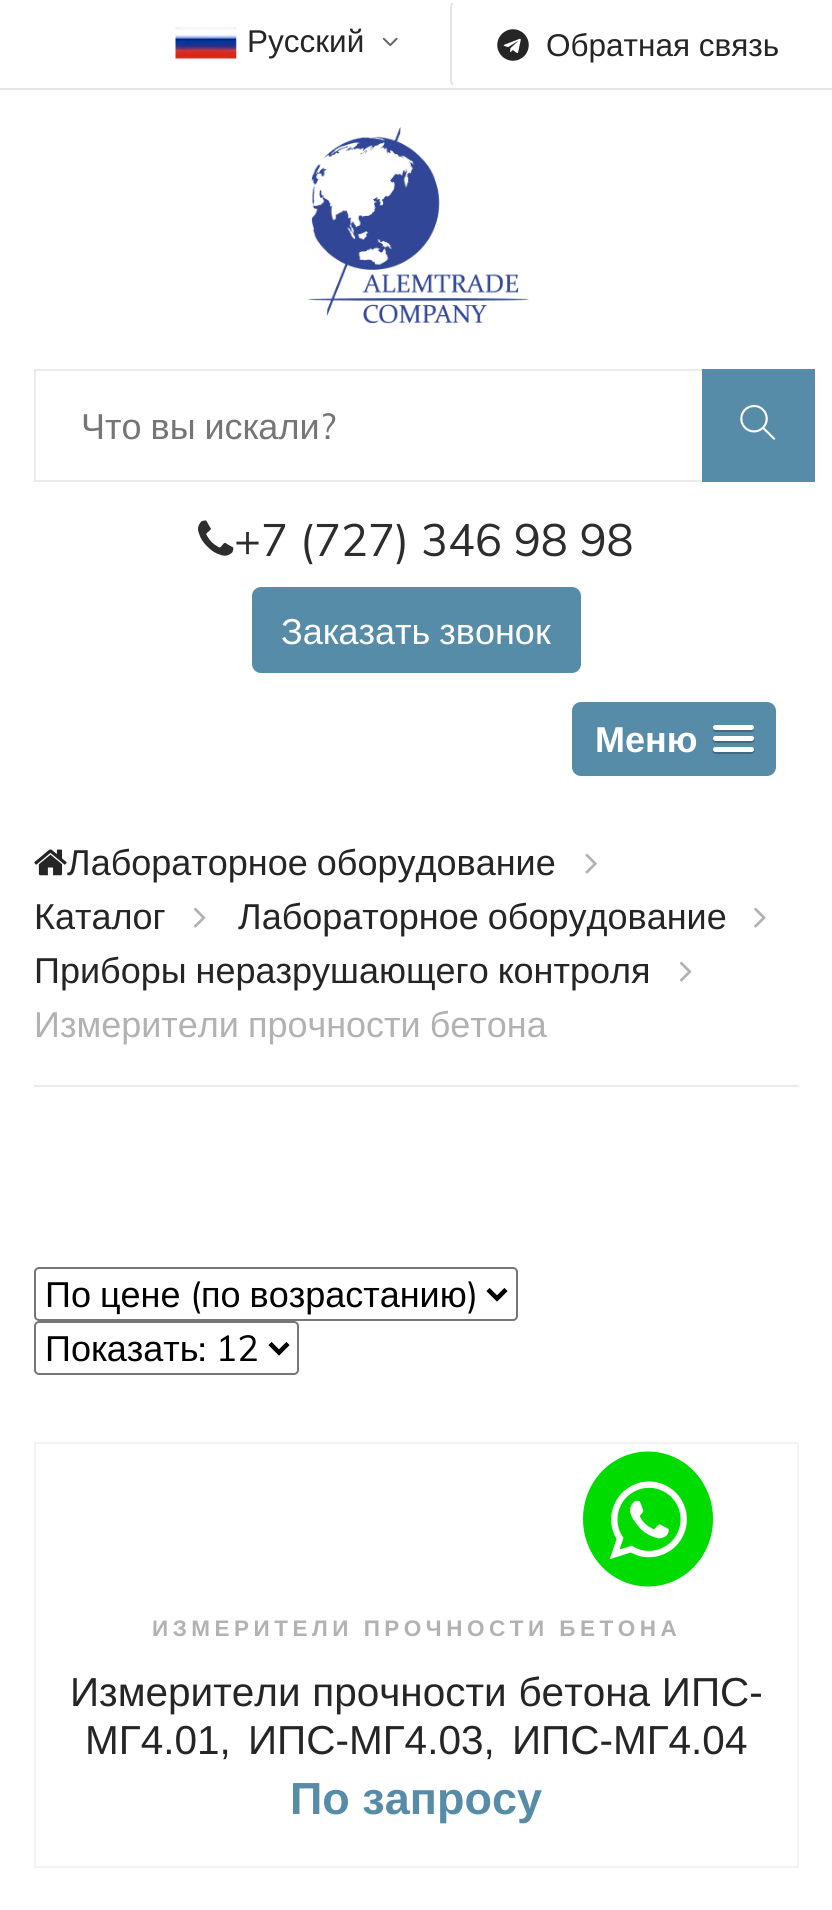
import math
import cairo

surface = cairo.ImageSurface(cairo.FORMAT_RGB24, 832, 1910)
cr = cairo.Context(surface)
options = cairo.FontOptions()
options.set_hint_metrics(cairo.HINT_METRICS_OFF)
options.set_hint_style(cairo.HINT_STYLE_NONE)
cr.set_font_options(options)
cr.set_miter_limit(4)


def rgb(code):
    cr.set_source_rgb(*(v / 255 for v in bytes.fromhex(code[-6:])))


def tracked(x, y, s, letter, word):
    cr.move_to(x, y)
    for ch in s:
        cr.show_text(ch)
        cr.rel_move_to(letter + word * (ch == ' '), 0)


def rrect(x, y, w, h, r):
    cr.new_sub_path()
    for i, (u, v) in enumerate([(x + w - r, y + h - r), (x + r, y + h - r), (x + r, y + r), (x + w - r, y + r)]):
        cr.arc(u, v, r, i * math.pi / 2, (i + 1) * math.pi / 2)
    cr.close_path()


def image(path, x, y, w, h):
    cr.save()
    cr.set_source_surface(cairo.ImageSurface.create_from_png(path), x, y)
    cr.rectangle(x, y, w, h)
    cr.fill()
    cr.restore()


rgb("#ffffff")
cr.paint()
rgb("#e5e5e5")
cr.rectangle(0, 88, 832, 2)
cr.fill()
image("img/1.png", 175, 27, 62, 32)
image("img/2.png", 382, 37, 16, 10)
cr.new_path()
cr.move_to(453, 85)
cr.curve_to(452, 83.5, 451, 82, 451, 80.5)
cr.line_to(451, 7)
cr.curve_to(451, 5.5, 452, 4, 453, 3)
cr.set_line_width(2.2)
cr.stroke()
image("img/3.png", 497, 29, 32, 32)
image("img/4.png", 308, 127, 221, 197)
cr.rectangle(35, 370, 763, 111)
rgb("#ebebeb")
cr.set_line_width(2)
cr.stroke()
rgb("#578ca9")
cr.rectangle(702, 369, 113, 113)
cr.fill()
image("img/5.png", 740, 404, 36, 36)
image("img/6.png", 198, 520, 36, 36)
rrect(253, 588, 327, 84, 8)
cr.fill_preserve()
cr.stroke()
rrect(572, 702, 204, 74, 9)
cr.fill()
rgb("#41697f")
cr.new_path()
cr.move_to(714, 728)
cr.curve_to(709, 733, 721, 732, 722, 732)
cr.line_to(746, 732)
cr.curve_to(746, 732, 758, 733, 753, 728)
cr.line_to(752, 729)
cr.line_to(715, 729)
cr.close_path()
cr.fill()
rgb("#ffffff")
rrect(713, 725, 41, 5, 2.5)
cr.fill()
rgb("#41697f")
cr.new_path()
cr.move_to(713, 739)
cr.curve_to(710, 744, 721, 743, 722, 743)
cr.line_to(746, 743)
cr.curve_to(746, 743, 757, 744, 754, 739)
cr.curve_to(753, 740, 752, 740, 752, 740)
cr.line_to(716, 740)
cr.curve_to(715, 740, 714, 740, 713, 739)
cr.close_path()
cr.fill()
rgb("#ffffff")
rrect(713, 736, 41, 5, 2.5)
cr.fill()
rgb("#41697f")
cr.new_path()
cr.move_to(713, 750)
cr.curve_to(710, 755, 721, 754, 722, 754)
cr.line_to(746, 754)
cr.curve_to(746, 754, 757, 755, 754, 750)
cr.curve_to(753, 751, 752, 752, 752, 752)
cr.line_to(716, 752)
cr.curve_to(715, 752, 714, 751, 713, 750)
cr.close_path()
cr.fill()
rgb("#ffffff")
rrect(713, 747, 41, 5, 2.5)
cr.fill()
rgb("#ebebeb")
cr.rectangle(34, 1085, 765, 2)
cr.fill()
image("img/7.png", 34, 849, 33, 27)
image("img/8.png", 585, 853, 12, 21)
image("img/9.png", 193, 907, 13, 21)
image("img/10.png", 754, 907, 12, 21)
image("img/9.png", 679, 961, 13, 21)
rrect(35, 1268, 482, 52, 4)
rgb("#767676")
cr.stroke()
cr.new_path()
cr.move_to(488, 1289.5)
cr.line_to(497, 1298.5)
cr.line_to(506, 1289.5)
rgb("#000000")
cr.set_line_width(4.5)
cr.stroke()
rrect(35, 1322, 263, 52, 4)
rgb("#767676")
cr.set_line_width(2)
cr.stroke()
cr.new_path()
cr.move_to(270, 1343.5)
cr.line_to(279, 1352.5)
cr.line_to(288, 1343.5)
rgb("#000000")
cr.set_line_width(4.5)
cr.stroke()
cr.rectangle(35, 1443, 763, 424)
rgb("#f3f3f3")
cr.set_line_width(2)
cr.stroke()
rgb("#00dc00")
cr.new_path()
cr.move_to(648, 1451.5)
cr.curve_to(684, 1451.5, 713, 1481.5, 713, 1519)
cr.curve_to(713, 1556.5, 684, 1586.5, 648, 1586.5)
cr.curve_to(612, 1586.5, 583, 1556.5, 583, 1519)
cr.curve_to(583, 1481.5, 612, 1451.5, 648, 1451.5)
cr.close_path()
cr.fill()
image("img/11.png", 609, 1481, 78, 79)
cr.select_font_face("Liberation Sans")
cr.set_font_size(31.5)
rgb("#252525")
cr.move_to(247, 52)
cr.show_text("Русский")
cr.move_to(546, 56)
cr.show_text("Обратная связь")
cr.set_font_size(36)
rgb("#757575")
tracked(81, 439, "Что вы искали", 0, -1)
cr.select_font_face("Muli")
cr.move_to(320, 439)
cr.show_text("?")
cr.set_font_size(45)
rgb("#2d2d2d")
cr.move_to(234, 556)
cr.show_text("+7 (727) 346 98 98")
cr.select_font_face("Liberation Sans")
cr.set_font_size(36)
rgb("#ffffff")
tracked(281, 644, "Заказать звонок", 0, -1)
cr.select_font_face("Liberation Sans", cairo.FONT_SLANT_NORMAL, cairo.FONT_WEIGHT_BOLD)
cr.move_to(595, 752)
cr.show_text("Меню")
cr.select_font_face("Liberation Sans")
rgb("#252525")
tracked(67, 875, "Лабораторное оборудование", 0, -1)
cr.move_to(34, 929)
cr.show_text("Каталог")
tracked(238, 929, "Лабораторное оборудование", 0, -1)
tracked(34, 983, "Приборы неразрушающего контроля", 0, -1)
rgb("#b2b2b2")
tracked(34, 1037, "Измерители прочности бетона", 0, -1)
rgb("#000000")
tracked(45, 1307, "По цене", 0, -1)
cr.select_font_face("Muli")
cr.move_to(190, 1307)
cr.show_text("(")
cr.select_font_face("Liberation Sans")
tracked(201, 1307, "по возрастанию", 0, -1)
cr.select_font_face("Muli")
cr.move_to(467, 1307)
cr.show_text(")")
cr.select_font_face("Liberation Sans")
cr.move_to(45, 1361)
cr.show_text("Показать")
cr.select_font_face("Muli")
cr.move_to(198, 1361)
cr.show_text(": 12")
cr.select_font_face("Liberation Sans", cairo.FONT_SLANT_NORMAL, cairo.FONT_WEIGHT_BOLD)
cr.set_font_size(22.5)
rgb("#b2b2b2")
tracked(152, 1636, "ИЗМЕРИТЕЛИ ПРОЧНОСТИ БЕТОНА", 4.5, 0)
cr.select_font_face("Liberation Sans")
cr.set_font_size(40.5)
rgb("#252525")
tracked(70, 1706, "Измерители прочности бетона ИПС-", 0, 0.5)
tracked(85, 1754, "МГ4.01, ИПС-МГ4.03, ИПС-МГ4.04", 0, 6)
cr.select_font_face("Liberation Sans", cairo.FONT_SLANT_NORMAL, cairo.FONT_WEIGHT_BOLD)
cr.set_font_size(45)
rgb("#578ca9")
cr.move_to(290, 1814)
cr.show_text("По запросу")
surface.write_to_png("page.png")
